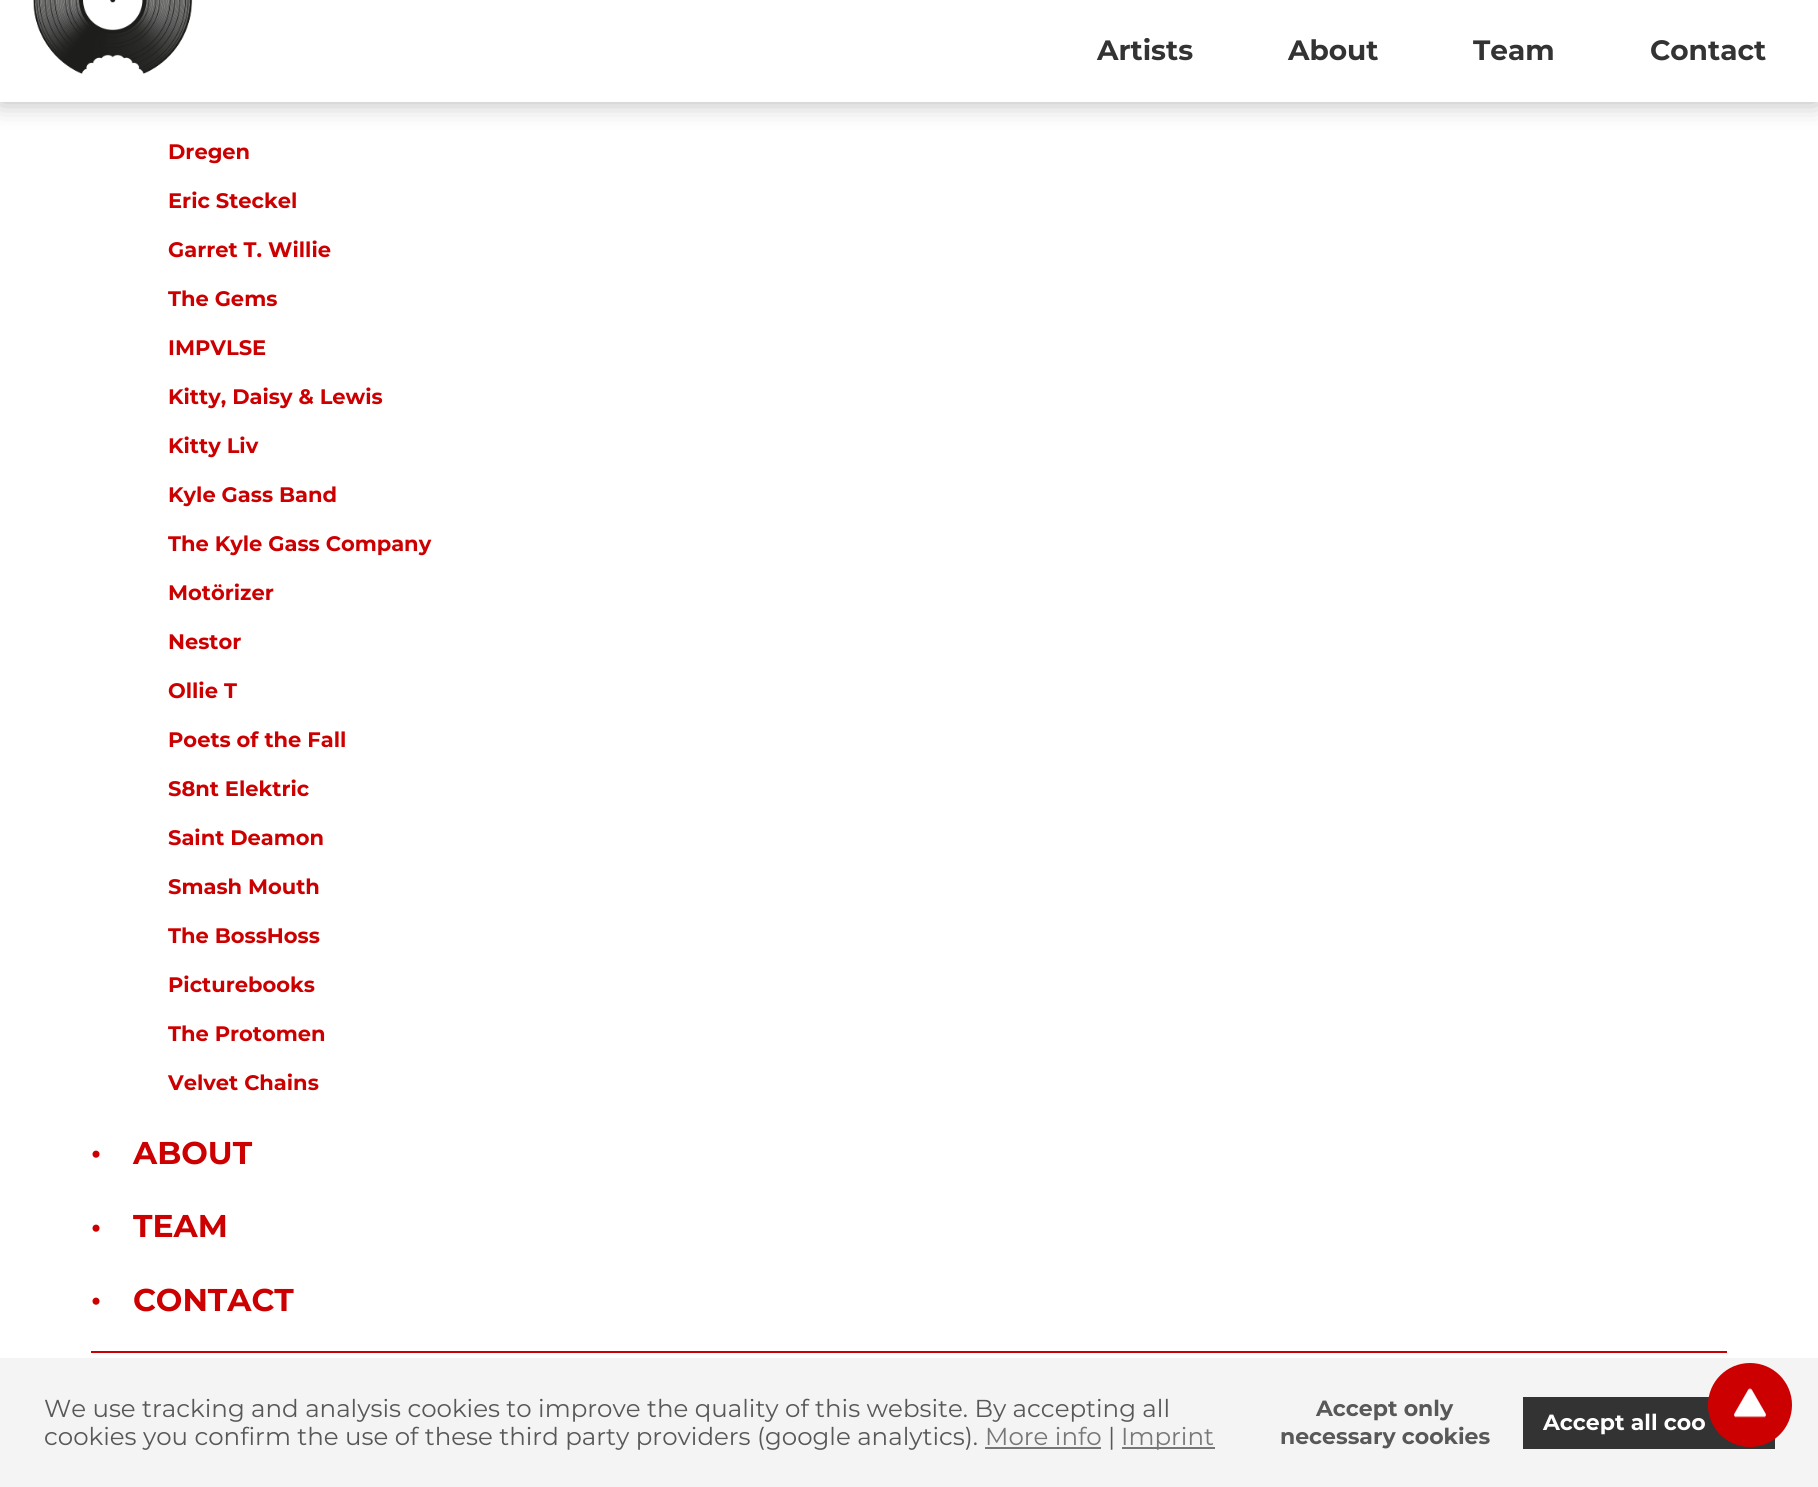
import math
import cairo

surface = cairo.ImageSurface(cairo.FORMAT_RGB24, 1818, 1487)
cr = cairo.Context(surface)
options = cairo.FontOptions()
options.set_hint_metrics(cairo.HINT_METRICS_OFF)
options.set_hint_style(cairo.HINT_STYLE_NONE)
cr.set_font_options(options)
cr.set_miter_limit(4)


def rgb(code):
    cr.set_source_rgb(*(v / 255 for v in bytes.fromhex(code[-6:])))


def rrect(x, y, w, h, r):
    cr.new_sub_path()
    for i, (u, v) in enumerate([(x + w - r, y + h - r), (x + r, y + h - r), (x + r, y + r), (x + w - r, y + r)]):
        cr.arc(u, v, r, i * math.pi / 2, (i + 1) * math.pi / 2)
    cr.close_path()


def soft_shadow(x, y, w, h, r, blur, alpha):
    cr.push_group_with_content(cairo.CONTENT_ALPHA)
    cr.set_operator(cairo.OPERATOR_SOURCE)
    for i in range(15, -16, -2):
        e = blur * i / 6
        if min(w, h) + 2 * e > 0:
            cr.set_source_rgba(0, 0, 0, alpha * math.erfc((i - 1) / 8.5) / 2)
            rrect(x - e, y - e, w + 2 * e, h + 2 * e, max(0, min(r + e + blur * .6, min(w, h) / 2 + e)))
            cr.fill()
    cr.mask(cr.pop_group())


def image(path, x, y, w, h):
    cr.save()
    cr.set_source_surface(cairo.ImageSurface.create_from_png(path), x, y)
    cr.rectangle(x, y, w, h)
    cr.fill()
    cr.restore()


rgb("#ffffff")
cr.paint()
rgb("#000000")
soft_shadow(0, 0, 1818, 102, 0, 13, 0.3)
rgb("#ffffff")
cr.rectangle(0, 0, 1818, 102)
cr.fill()
image("img/1.png", 33, 0, 160, 74)
for x, y, w, h, color in [
    (91, 1351, 1636, 2, "#cc0000"),
    (0, 1358, 1818, 129, "#f4f4f4"),
    (985, 1447, 116, 2, "#777777"),
    (1122, 1447, 93, 2, "#777777"),
    (1523, 1397, 252, 52, "#333333"),
]:
    rgb(color)
    cr.rectangle(x, y, w, h)
    cr.fill()
rgb("#cc0000")
cr.arc(1750, 1405, 42, 0, 2 * math.pi)
cr.fill()
image("img/2.png", 1734, 1388, 32, 30)
cr.select_font_face("Montserrat", cairo.FONT_SLANT_NORMAL, cairo.FONT_WEIGHT_BOLD)
cr.set_font_size(28)
rgb("#333333")
for x, y, s in [
    (1097, 60, "Artists"),
    (1288, 60, "About"),
    (1473, 60, "Team"),
    (1650, 60, "Contact"),
]:
    cr.move_to(x, y)
    cr.show_text(s)
cr.set_font_size(21)
rgb("#cc0000")
for x, y, s in [
    (168, 159, "Dregen"),
    (168, 208, "Eric Steckel"),
    (168, 257, "Garret T. Willie"),
    (168, 306, "The Gems"),
    (168, 355, "IMPVLSE"),
    (168, 404, "Kitty, Daisy & Lewis"),
    (168, 453, "Kitty Liv"),
    (168, 502, "Kyle Gass Band"),
    (168, 551, "The Kyle Gass Company"),
    (168, 600, "Motörizer"),
    (168, 649, "Nestor"),
    (168, 698, "Ollie T"),
    (168, 747, "Poets of the Fall"),
    (168, 796, "S8nt Elektric"),
    (168, 845, "Saint Deamon"),
    (168, 894, "Smash Mouth"),
    (168, 943, "The BossHoss"),
    (168, 992, "Picturebooks"),
    (168, 1041, "The Protomen"),
    (168, 1090, "Velvet Chains"),
]:
    cr.move_to(x, y)
    cr.show_text(s)
cr.set_font_size(28)
cr.move_to(91, 1162)
cr.show_text("•")
cr.set_font_size(31.5)
cr.move_to(133, 1164)
cr.show_text("ABOUT")
cr.set_font_size(28)
cr.move_to(91, 1236)
cr.show_text("•")
cr.set_font_size(31.5)
cr.move_to(133, 1237)
cr.show_text("TEAM")
cr.set_font_size(28)
cr.move_to(91, 1309)
cr.show_text("•")
cr.set_font_size(31.5)
cr.move_to(133, 1311)
cr.show_text("CONTACT")
cr.select_font_face("Montserrat")
cr.set_font_size(24.5)
rgb("#585858")
cr.move_to(44, 1417)
cr.show_text("We use tracking and analysis cookies to improve the quality of this website. By accepting all")
cr.move_to(44, 1445)
cr.show_text("cookies you confirm the use of these third party providers (google analytics).")
rgb("#777777")
cr.move_to(985, 1445)
cr.show_text("More info")
rgb("#585858")
cr.move_to(1108, 1445)
cr.show_text("|")
rgb("#777777")
cr.move_to(1121, 1445)
cr.show_text("Imprint")
cr.select_font_face("Montserrat", cairo.FONT_SLANT_NORMAL, cairo.FONT_WEIGHT_BOLD)
cr.set_font_size(22)
rgb("#585858")
cr.move_to(1316, 1416)
cr.show_text("Accept only")
cr.move_to(1280, 1444)
cr.show_text("necessary cookies")
rgb("#ffffff")
cr.move_to(1543, 1430)
cr.show_text("Accept all coo")
surface.write_to_png("page.png")
